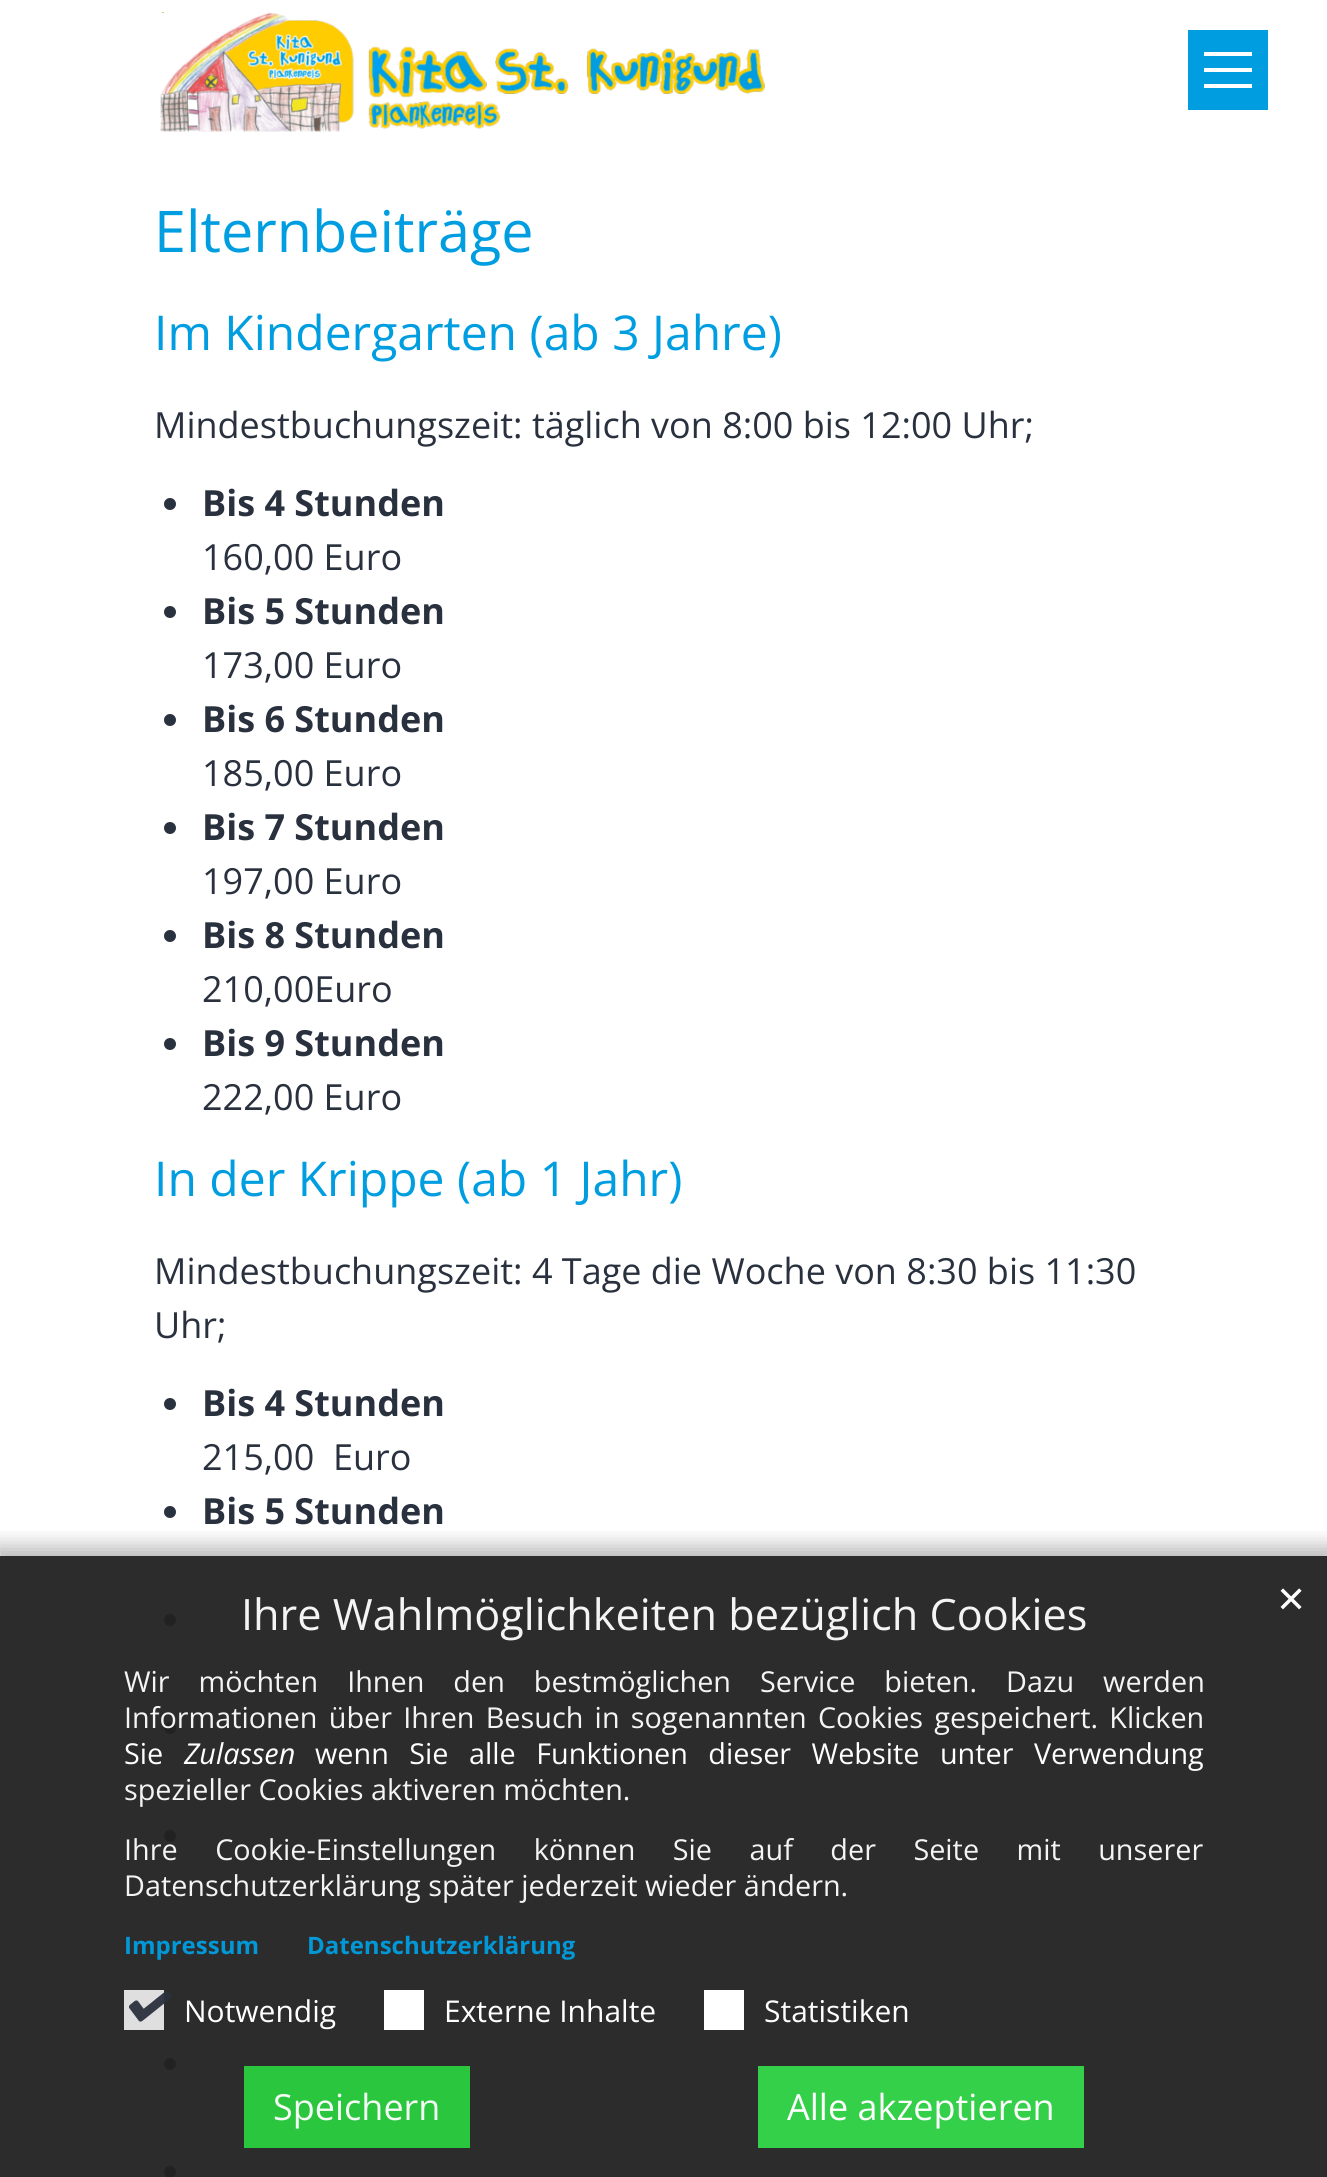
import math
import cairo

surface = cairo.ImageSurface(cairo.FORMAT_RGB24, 1327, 2177)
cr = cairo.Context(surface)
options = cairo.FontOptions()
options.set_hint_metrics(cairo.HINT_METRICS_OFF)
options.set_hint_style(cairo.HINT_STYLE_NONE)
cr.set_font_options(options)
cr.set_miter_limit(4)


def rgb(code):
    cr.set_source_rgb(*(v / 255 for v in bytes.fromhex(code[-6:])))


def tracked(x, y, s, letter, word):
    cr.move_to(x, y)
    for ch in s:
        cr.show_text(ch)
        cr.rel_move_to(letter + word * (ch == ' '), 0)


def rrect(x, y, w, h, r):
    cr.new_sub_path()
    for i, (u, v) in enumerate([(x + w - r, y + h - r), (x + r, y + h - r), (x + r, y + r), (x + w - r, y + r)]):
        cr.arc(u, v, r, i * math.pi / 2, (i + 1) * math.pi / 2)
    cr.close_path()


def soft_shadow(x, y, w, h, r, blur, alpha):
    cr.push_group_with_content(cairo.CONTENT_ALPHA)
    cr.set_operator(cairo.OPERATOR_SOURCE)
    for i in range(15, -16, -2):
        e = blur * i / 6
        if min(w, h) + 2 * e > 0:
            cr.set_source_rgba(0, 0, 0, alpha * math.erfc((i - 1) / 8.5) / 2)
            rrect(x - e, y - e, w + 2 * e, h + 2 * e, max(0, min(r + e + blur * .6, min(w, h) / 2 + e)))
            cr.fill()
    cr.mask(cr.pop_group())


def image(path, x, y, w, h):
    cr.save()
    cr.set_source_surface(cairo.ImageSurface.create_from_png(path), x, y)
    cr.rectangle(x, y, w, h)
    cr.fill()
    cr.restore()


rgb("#ffffff")
cr.paint()
image("img/1.png", 160, 12, 605, 120)
for x, y, w, h, color in [
    (1188, 30, 80, 80, "#009ee0"),
    (1204, 68, 48, 4, "#ffffff"),
    (1204, 52, 48, 4, "#ffffff"),
    (1204, 84, 48, 4, "#ffffff"),
]:
    rgb(color)
    cr.rectangle(x, y, w, h)
    cr.fill()
rgb("#2a313e")
cr.arc(170, 504, 6, 0, 2 * math.pi)
cr.fill()
cr.arc(170, 612, 6, 0, 2 * math.pi)
cr.fill()
cr.arc(170, 720, 6, 0, 2 * math.pi)
cr.fill()
cr.arc(170, 828, 6, 0, 2 * math.pi)
cr.fill()
cr.arc(170, 936, 6, 0, 2 * math.pi)
cr.fill()
cr.arc(170, 1044, 6, 0, 2 * math.pi)
cr.fill()
cr.arc(170, 1404, 6, 0, 2 * math.pi)
cr.fill()
cr.arc(170, 1512, 6, 0, 2 * math.pi)
cr.fill()
cr.arc(170, 1620, 6, 0, 2 * math.pi)
cr.fill()
cr.arc(170, 1728, 6, 0, 2 * math.pi)
cr.fill()
cr.arc(170, 1836, 6, 0, 2 * math.pi)
cr.fill()
cr.arc(170, 2064, 6, 0, 2 * math.pi)
cr.fill()
cr.arc(170, 2172, 6, 0, 2 * math.pi)
cr.fill()
cr.save()
cr.rectangle(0, 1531, 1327, 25)
cr.clip()
rgb("#000000")
soft_shadow(-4, 1546, 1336, 630, 0, 10, 0.28)
cr.restore()
cr.set_source_rgba(0.133, 0.133, 0.133, 0.95)
cr.rectangle(0, 1556, 1327, 621)
cr.fill()
rgb("#dfdfdf")
cr.rectangle(124, 1990, 40, 40)
cr.fill()
image("img/2.png", 129, 1991, 42, 31)
rgb("#ffffff")
cr.rectangle(384, 1990, 40, 40)
cr.rectangle(704, 1990, 40, 40)
cr.fill()
cr.set_source_rgba(0.161, 0.808, 0.247, 0.95)
cr.rectangle(244, 2066, 226, 82)
cr.fill()
rgb("#34d049")
cr.rectangle(758, 2066, 326, 82)
cr.fill()
cr.select_font_face("Open Sans")
cr.set_font_size(57.5)
rgb("#009ee0")
cr.move_to(154, 252)
cr.show_text("Elternbeiträge")
cr.set_font_size(48)
cr.move_to(154, 350)
cr.show_text("Im Kindergarten (ab 3 Jahre)")
cr.set_font_size(36)
rgb("#2a313e")
cr.move_to(154, 438)
cr.show_text("Mindestbuchungszeit: täglich von 8:00 bis 12:00 Uhr;")
cr.select_font_face("Open Sans", cairo.FONT_SLANT_NORMAL, cairo.FONT_WEIGHT_BOLD)
cr.move_to(202, 516)
cr.show_text("Bis 4 Stunden")
cr.select_font_face("Open Sans")
cr.move_to(202, 570)
cr.show_text("160,00 Euro")
cr.select_font_face("Open Sans", cairo.FONT_SLANT_NORMAL, cairo.FONT_WEIGHT_BOLD)
cr.move_to(202, 624)
cr.show_text("Bis 5 Stunden")
cr.select_font_face("Open Sans")
cr.move_to(202, 678)
cr.show_text("173,00 Euro")
cr.select_font_face("Open Sans", cairo.FONT_SLANT_NORMAL, cairo.FONT_WEIGHT_BOLD)
cr.move_to(202, 732)
cr.show_text("Bis 6 Stunden")
cr.select_font_face("Open Sans")
cr.move_to(202, 786)
cr.show_text("185,00 Euro")
cr.select_font_face("Open Sans", cairo.FONT_SLANT_NORMAL, cairo.FONT_WEIGHT_BOLD)
cr.move_to(202, 840)
cr.show_text("Bis 7 Stunden")
cr.select_font_face("Open Sans")
cr.move_to(202, 894)
cr.show_text("197,00 Euro")
cr.select_font_face("Open Sans", cairo.FONT_SLANT_NORMAL, cairo.FONT_WEIGHT_BOLD)
cr.move_to(202, 948)
cr.show_text("Bis 8 Stunden")
cr.select_font_face("Open Sans")
cr.move_to(202, 1002)
cr.show_text("210,00Euro")
cr.select_font_face("Open Sans", cairo.FONT_SLANT_NORMAL, cairo.FONT_WEIGHT_BOLD)
cr.move_to(202, 1056)
cr.show_text("Bis 9 Stunden")
cr.select_font_face("Open Sans")
cr.move_to(202, 1110)
cr.show_text("222,00 Euro")
cr.set_font_size(48)
rgb("#009ee0")
cr.move_to(154, 1196)
cr.show_text("In der Krippe (ab 1 Jahr)")
cr.set_font_size(36)
rgb("#2a313e")
cr.move_to(154, 1284)
cr.show_text("Mindestbuchungszeit: 4 Tage die Woche von 8:30 bis 11:30")
cr.move_to(154, 1338)
cr.show_text("Uhr;")
cr.select_font_face("Open Sans", cairo.FONT_SLANT_NORMAL, cairo.FONT_WEIGHT_BOLD)
cr.move_to(202, 1416)
cr.show_text("Bis 4 Stunden")
cr.select_font_face("Open Sans")
cr.move_to(202, 1470)
cr.show_text("215,00  Euro")
cr.select_font_face("Open Sans", cairo.FONT_SLANT_NORMAL, cairo.FONT_WEIGHT_BOLD)
cr.move_to(202, 1524)
cr.show_text("Bis 5 Stunden")
cr.select_font_face("Open Sans")
cr.set_font_size(43.25)
rgb("#f4f4f4")
cr.move_to(241, 1630)
cr.show_text("Ihre Wahlmöglichkeiten bezüglich Cookies")
cr.select_font_face("DejaVu Sans")
cr.set_font_size(36)
rgb("#ffffff")
cr.move_to(1276, 1612)
cr.show_text("✕")
cr.select_font_face("Open Sans")
cr.set_font_size(28.8)
rgb("#f4f4f4")
tracked(124, 1692, "Wir möchten Ihnen den bestmöglichen Service bieten. Dazu werden", 0, 21.5)
tracked(124, 1728, "Informationen über Ihren Besuch in sogenannten Cookies gespeichert. Klicken", 0, 3.75)
rgb("#ffffff")
cr.move_to(124, 1764)
cr.show_text("Sie")
cr.select_font_face("Open Sans", cairo.FONT_SLANT_ITALIC)
cr.move_to(184, 1764)
cr.show_text("Zulassen")
cr.select_font_face("Open Sans")
tracked(315, 1764, "wenn Sie alle Funktionen dieser Website unter Verwendung", 0, 13)
rgb("#f4f4f4")
cr.move_to(124, 1800)
cr.show_text("spezieller Cookies aktiveren möchten.")
tracked(124, 1860, "Ihre Cookie-Einstellungen können Sie auf der Seite mit unserer", 0, 30)
cr.move_to(124, 1896)
cr.show_text("Datenschutzerklärung später jederzeit wieder ändern.")
cr.select_font_face("Open Sans", cairo.FONT_SLANT_NORMAL, cairo.FONT_WEIGHT_BOLD)
cr.set_font_size(24)
rgb("#0298d7")
cr.move_to(124, 1954)
cr.show_text("Impressum")
cr.move_to(307, 1954)
cr.show_text("Datenschutzerklärung")
cr.select_font_face("Open Sans")
cr.set_font_size(30)
rgb("#ffffff")
for x, y, s in [
    (184, 2022, "Notwendig"),
    (444, 2022, "Externe Inhalte"),
    (764, 2022, "Statistiken"),
]:
    cr.move_to(x, y)
    cr.show_text(s)
cr.set_font_size(36)
rgb("#f4fcf5")
cr.move_to(273, 2120)
cr.show_text("Speichern")
rgb("#ffffff")
cr.move_to(787, 2120)
cr.show_text("Alle akzeptieren")
surface.write_to_png("page.png")
